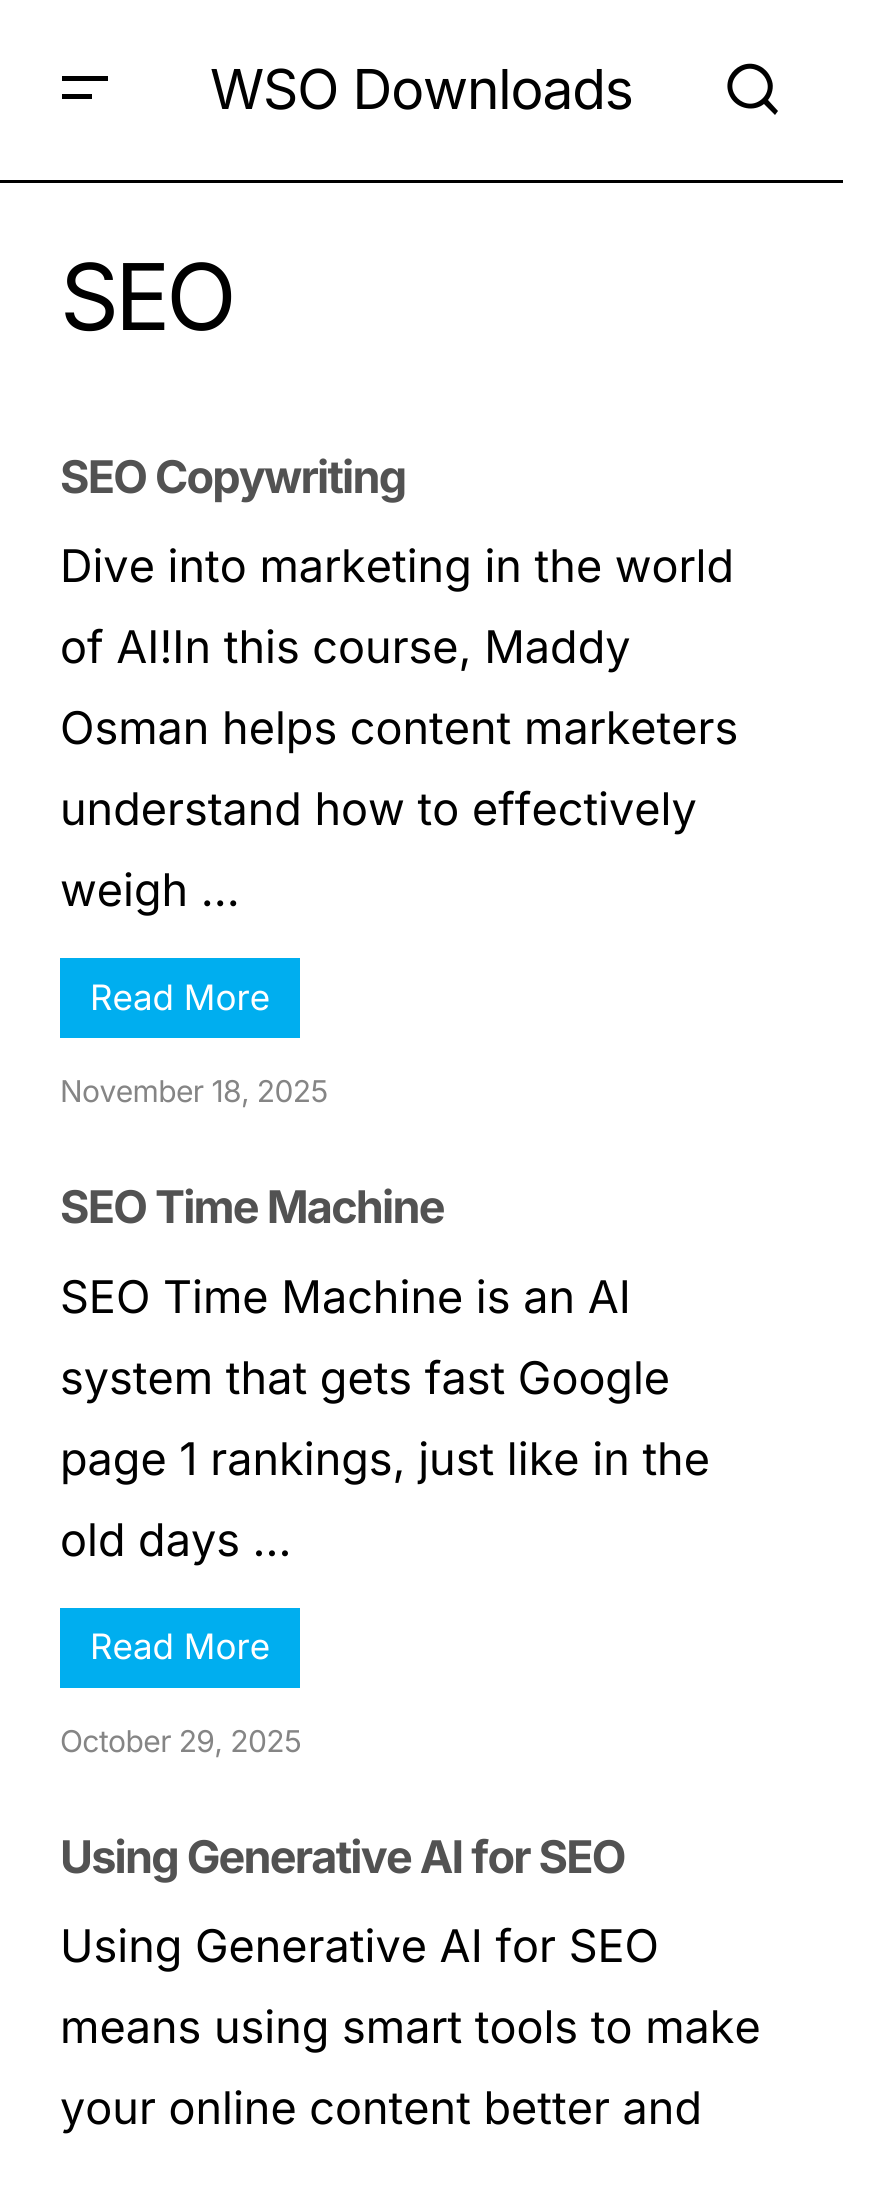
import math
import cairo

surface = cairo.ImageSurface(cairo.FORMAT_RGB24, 880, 2186)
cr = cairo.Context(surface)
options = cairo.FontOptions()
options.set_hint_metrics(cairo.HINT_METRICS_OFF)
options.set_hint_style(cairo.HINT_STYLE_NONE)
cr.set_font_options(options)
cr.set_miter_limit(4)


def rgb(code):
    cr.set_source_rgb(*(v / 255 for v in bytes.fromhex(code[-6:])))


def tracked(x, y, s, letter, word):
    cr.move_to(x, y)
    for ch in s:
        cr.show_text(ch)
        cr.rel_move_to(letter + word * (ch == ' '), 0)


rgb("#ffffff")
cr.paint()
rgb("#000000")
cr.new_path()
cr.move_to(62, 76)
cr.line_to(108, 76)
cr.line_to(108, 81)
cr.line_to(62, 81)
cr.close_path()
cr.move_to(62, 94)
cr.line_to(92, 94)
cr.line_to(92, 99)
cr.line_to(62, 99)
cr.close_path()
cr.fill()
cr.new_path()
cr.move_to(768, 100)
cr.line_to(778, 111)
cr.line_to(775, 115)
cr.line_to(764, 104)
cr.curve_to(754, 112, 738, 109, 731, 98)
cr.curve_to(718, 77, 743, 54, 763, 68)
cr.curve_to(767, 71, 770, 75, 772, 81)
cr.curve_to(774, 87, 772, 95, 768, 100)
cr.close_path()
cr.move_to(763, 98)
cr.curve_to(778, 82, 754, 58, 738, 74)
cr.curve_to(721, 90, 746, 115, 763, 98)
cr.close_path()
cr.fill()
for x, y, w, h, color in [
    (0, 180, 843, 3, "#000000"),
    (60, 958, 240, 80, "#00aeef"),
    (60, 1608, 240, 80, "#00aeef"),
]:
    rgb(color)
    cr.rectangle(x, y, w, h)
    cr.fill()
cr.select_font_face("Inter")
cr.set_font_size(55)
rgb("#000000")
tracked(210, 109, "WSO Downloads", -1.1, 0)
cr.set_font_size(92)
tracked(60, 330, "SEO", -4, 0)
cr.select_font_face("Inter", cairo.FONT_SLANT_NORMAL, cairo.FONT_WEIGHT_BOLD)
cr.set_font_size(45)
rgb("#525252")
tracked(60, 493, "SEO Copywriting", -1.8, 0)
cr.select_font_face("Inter")
rgb("#000000")
for x, y, s in [
    (60, 582, "Dive into marketing in the world"),
    (60, 663, "of AI!In this course, Maddy"),
    (60, 744, "Osman helps content marketers"),
    (60, 825, "understand how to effectively"),
    (60, 906, "weigh ..."),
]:
    cr.move_to(x, y)
    cr.show_text(s)
cr.set_font_size(35)
rgb("#ffffff")
cr.move_to(90, 1010)
cr.show_text("Read More")
cr.set_font_size(30)
rgb("#858585")
tracked(60, 1102, "November 18, 2025", -0.6, 0)
cr.select_font_face("Inter", cairo.FONT_SLANT_NORMAL, cairo.FONT_WEIGHT_BOLD)
cr.set_font_size(45)
rgb("#525252")
tracked(60, 1223, "SEO Time Machine", -1.8, 0)
cr.select_font_face("Inter")
rgb("#000000")
for x, y, s in [
    (60, 1313, "SEO Time Machine is an AI"),
    (60, 1394, "system that gets fast Google"),
    (60, 1475, "page 1 rankings, just like in the"),
    (60, 1556, "old days ..."),
]:
    cr.move_to(x, y)
    cr.show_text(s)
cr.set_font_size(35)
rgb("#ffffff")
cr.move_to(90, 1659)
cr.show_text("Read More")
cr.set_font_size(30)
rgb("#858585")
tracked(60, 1752, "October 29, 2025", -0.6, 0)
cr.select_font_face("Inter", cairo.FONT_SLANT_NORMAL, cairo.FONT_WEIGHT_BOLD)
cr.set_font_size(45)
rgb("#525252")
tracked(60, 1873, "Using Generative AI for SEO", -1.8, 0)
cr.select_font_face("Inter")
rgb("#000000")
for x, y, s in [
    (60, 1962, "Using Generative AI for SEO"),
    (60, 2043, "means using smart tools to make"),
    (60, 2124, "your online content better and"),
]:
    cr.move_to(x, y)
    cr.show_text(s)
surface.write_to_png("page.png")
